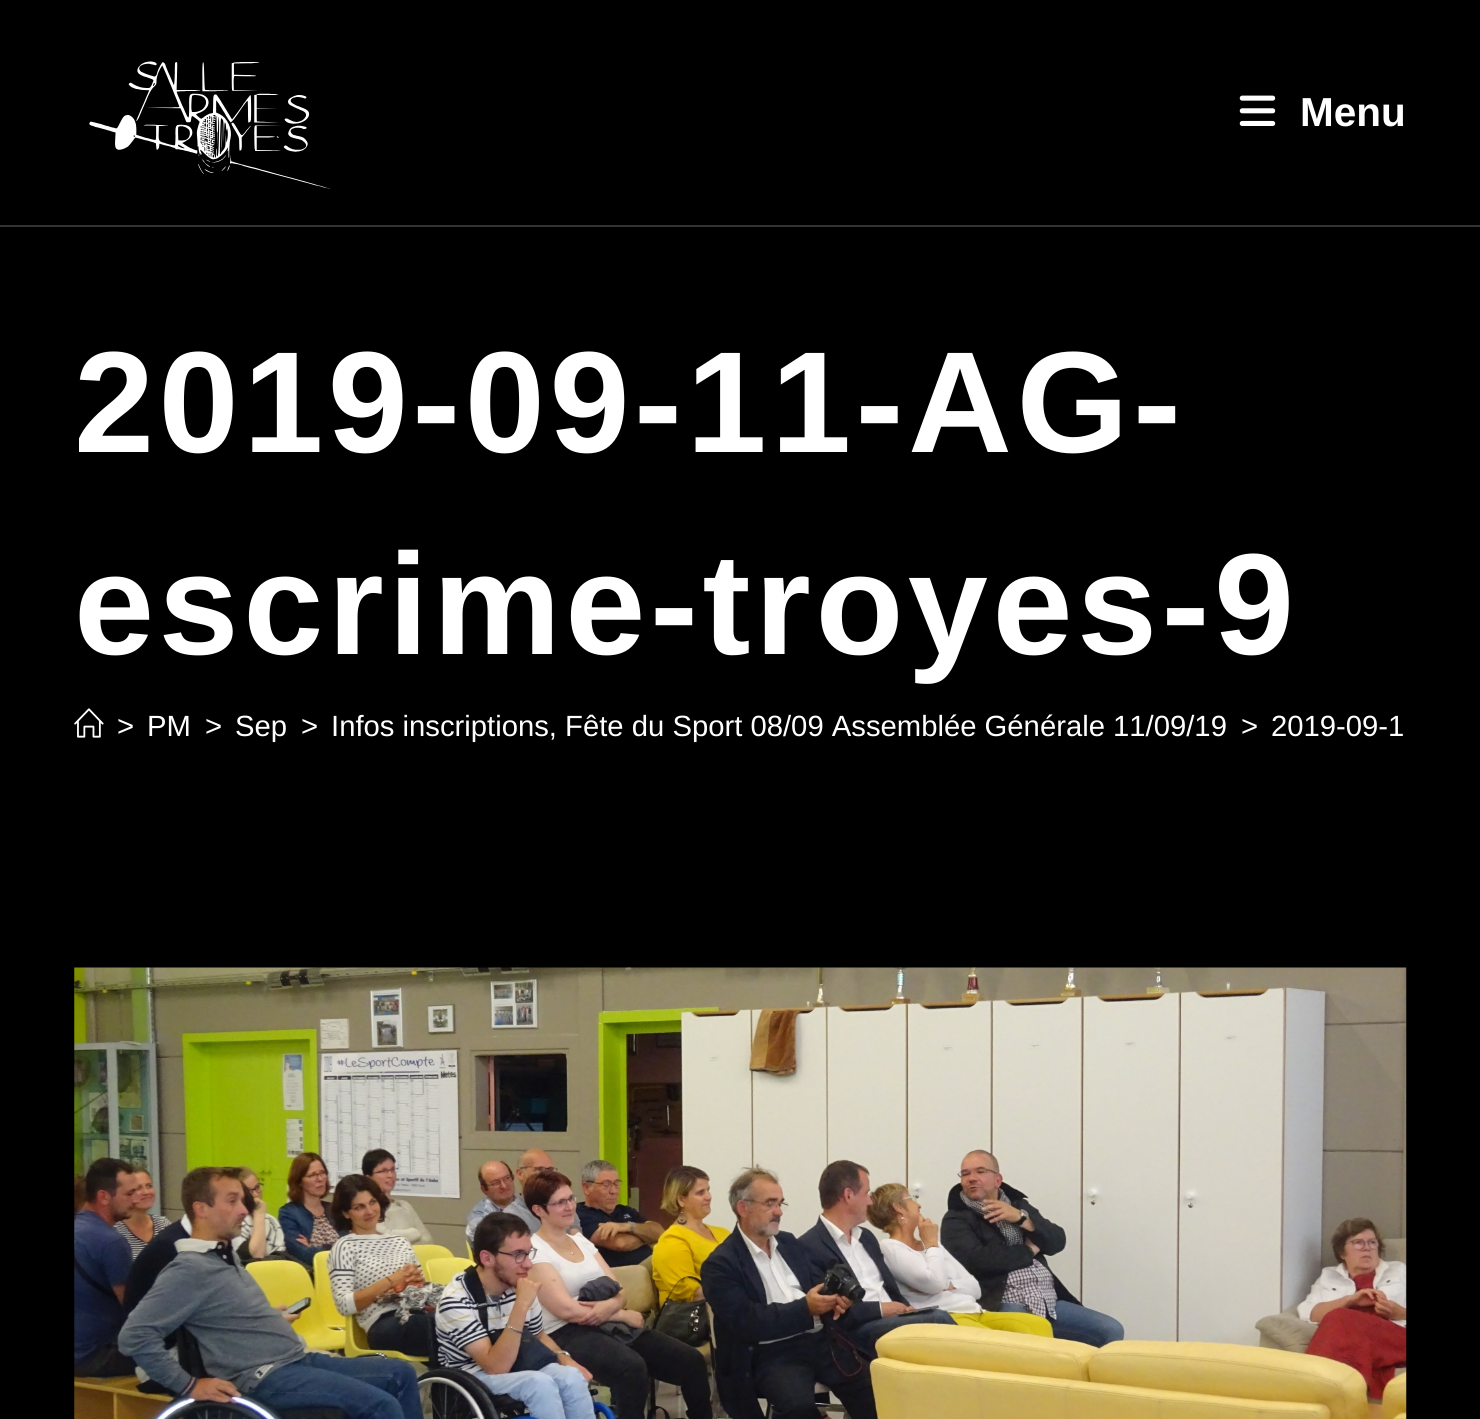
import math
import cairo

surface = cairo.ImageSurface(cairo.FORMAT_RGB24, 1480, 1419)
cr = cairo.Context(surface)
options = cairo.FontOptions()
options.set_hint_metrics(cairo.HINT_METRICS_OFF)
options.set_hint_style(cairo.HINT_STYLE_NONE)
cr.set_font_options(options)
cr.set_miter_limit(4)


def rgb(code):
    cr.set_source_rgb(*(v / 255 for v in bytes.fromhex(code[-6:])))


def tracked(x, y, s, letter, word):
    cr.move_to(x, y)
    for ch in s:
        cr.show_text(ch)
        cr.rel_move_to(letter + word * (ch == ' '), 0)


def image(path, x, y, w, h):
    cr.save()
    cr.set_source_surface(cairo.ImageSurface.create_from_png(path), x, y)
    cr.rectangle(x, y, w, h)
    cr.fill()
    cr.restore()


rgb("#000000")
cr.paint()
rgb("#333333")
cr.rectangle(0, 225, 1480, 2)
cr.fill()
image("img/1.png", 89, 61, 242, 128)
image("img/2.png", 1239, 95, 37, 31)
image("img/3.png", 74, 708, 30, 30)
image("img/4.png", 74, 967, 1333, 452)
cr.select_font_face("Liberation Sans", cairo.FONT_SLANT_NORMAL, cairo.FONT_WEIGHT_BOLD)
cr.set_font_size(40.5)
rgb("#ffffff")
cr.move_to(1300, 126)
cr.show_text("Menu")
cr.set_font_size(144)
tracked(74, 452, "2019-09-11-AG-", 4.5, 0)
tracked(74, 654, "escrime-troyes-9", 4.5, 0)
cr.select_font_face("Liberation Sans")
cr.set_font_size(29.25)
for x, y, s in [
    (117, 736, ">"),
    (147, 736, "PM"),
    (205, 736, ">"),
    (235, 736, "Sep"),
    (301, 736, ">"),
    (331, 736, "Infos inscriptions, Fête du Sport 08/09 Assemblée Générale 11/09/19"),
    (1241, 736, ">"),
    (1271, 736, "2019-09-1"),
]:
    cr.move_to(x, y)
    cr.show_text(s)
surface.write_to_png("page.png")
